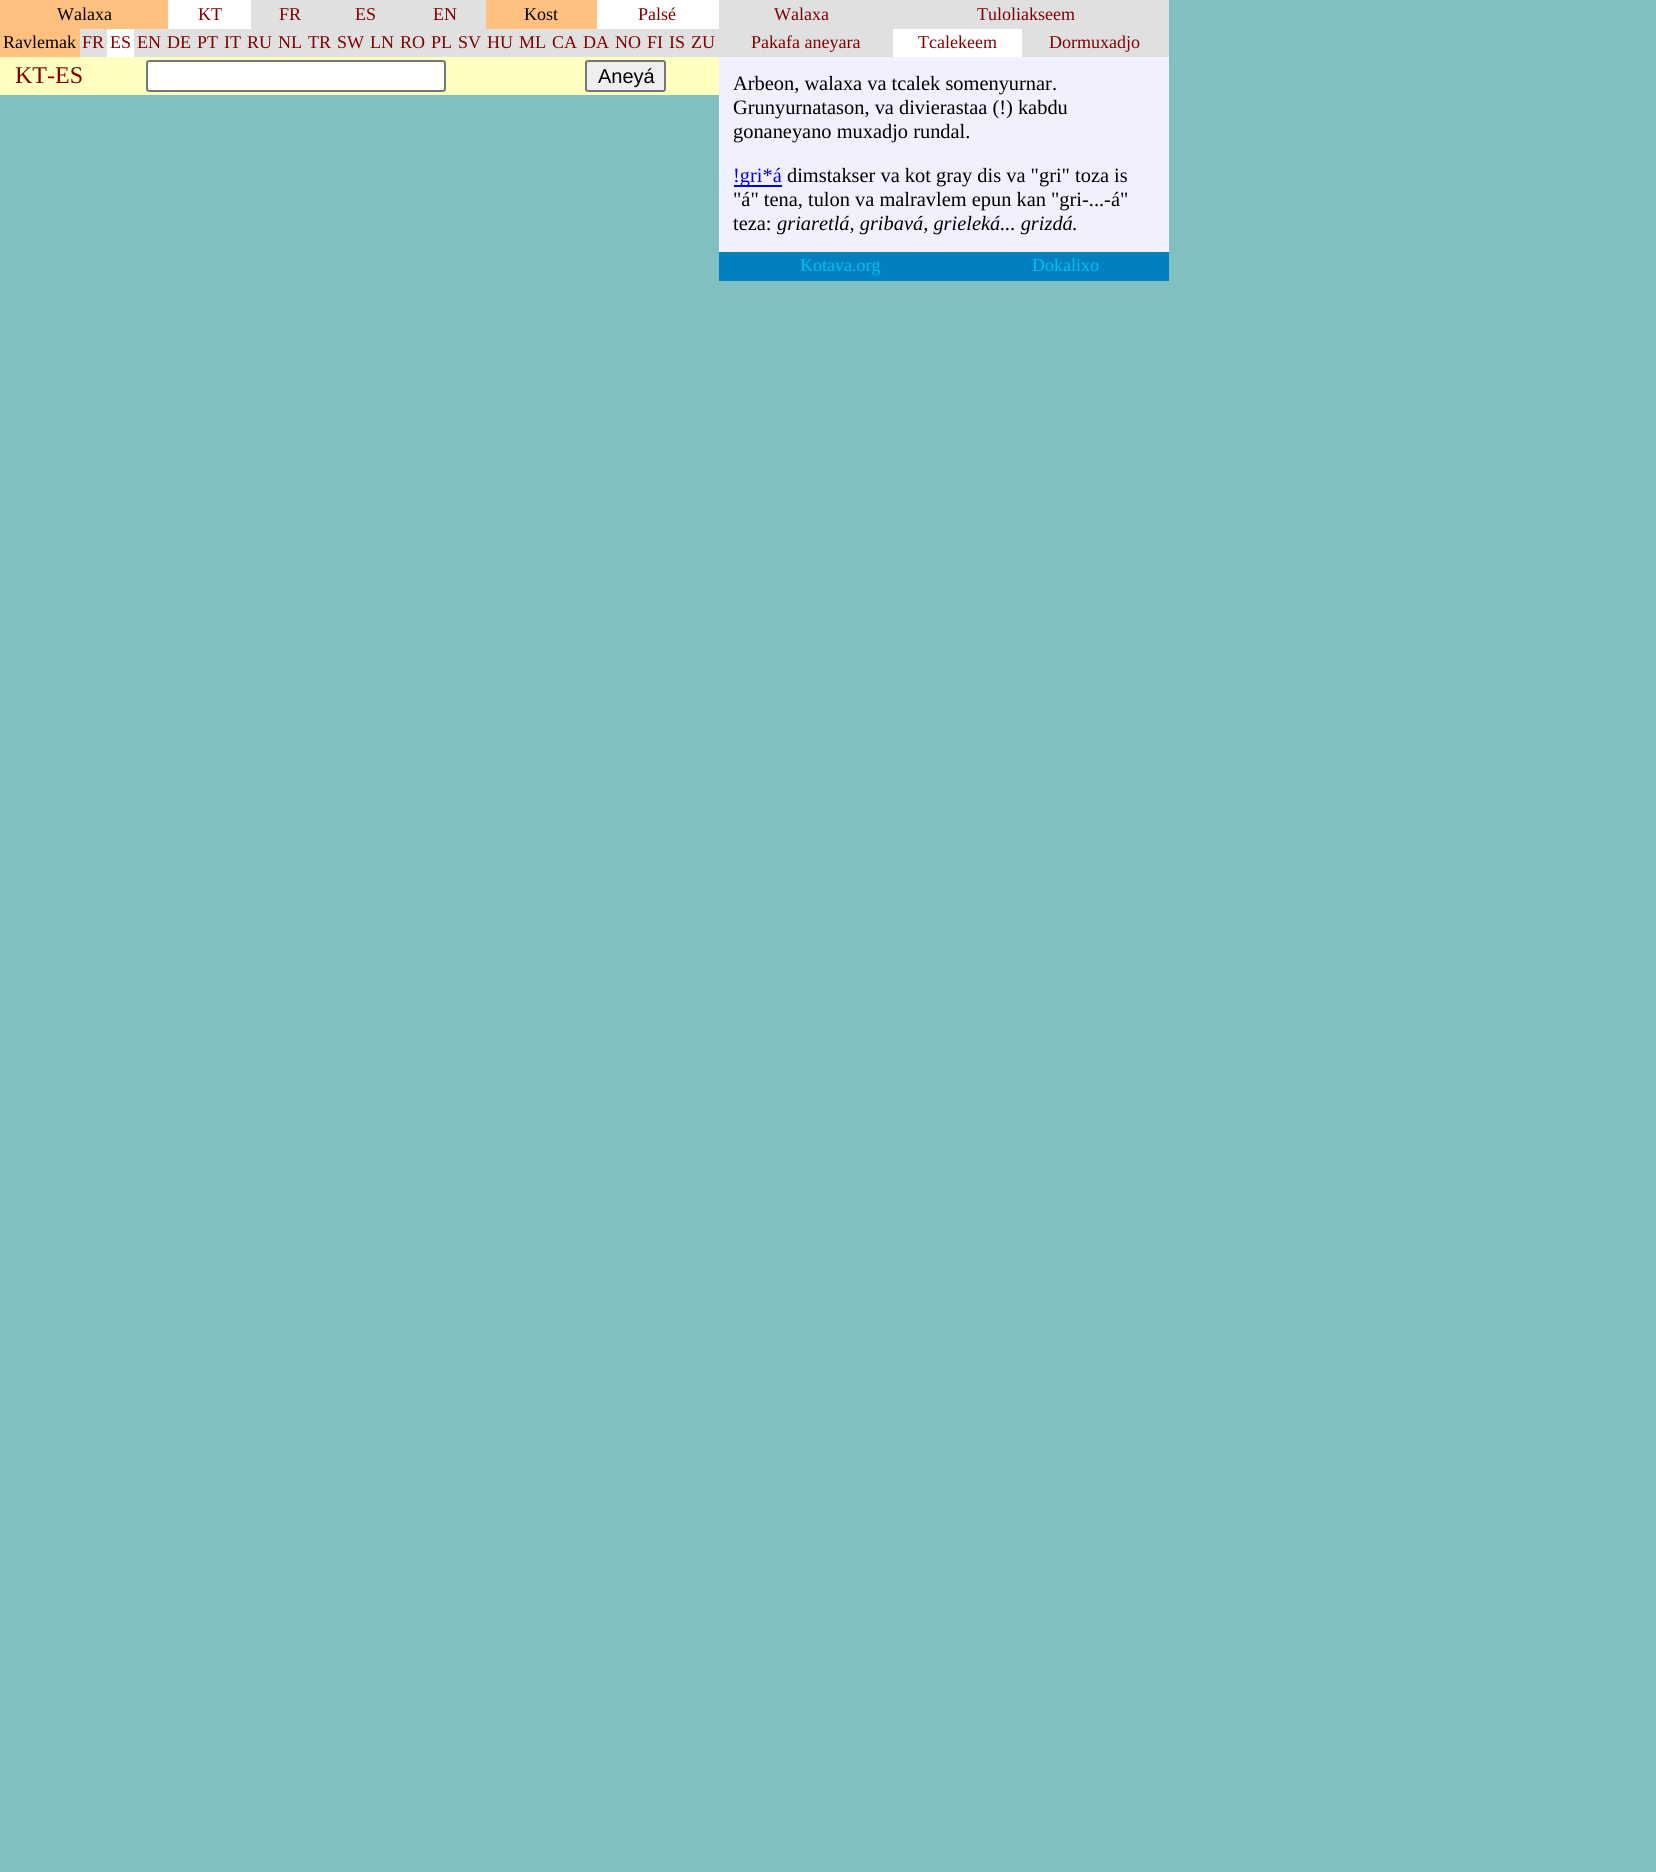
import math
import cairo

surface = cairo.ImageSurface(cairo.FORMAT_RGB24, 1656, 1872)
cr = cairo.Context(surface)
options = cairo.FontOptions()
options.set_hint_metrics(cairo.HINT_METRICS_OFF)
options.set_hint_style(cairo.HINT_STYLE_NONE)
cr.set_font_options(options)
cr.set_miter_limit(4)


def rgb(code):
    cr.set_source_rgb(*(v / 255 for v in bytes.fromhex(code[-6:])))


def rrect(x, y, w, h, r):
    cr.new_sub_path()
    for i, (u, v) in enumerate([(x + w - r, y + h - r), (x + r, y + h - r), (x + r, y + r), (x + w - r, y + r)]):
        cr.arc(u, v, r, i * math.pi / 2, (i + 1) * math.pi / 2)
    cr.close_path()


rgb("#80c0c0")
cr.paint()
for x, y, w, h, color in [
    (0, 0, 168, 29, "#ffc080"),
    (168, 0, 83, 29, "#ffffff"),
    (251, 0, 235, 29, "#e0e0e0"),
    (486, 0, 111, 29, "#ffc080"),
    (597, 0, 122, 29, "#ffffff"),
    (0, 29, 80, 28, "#ffc080"),
    (80, 29, 27, 28, "#e0e0e0"),
    (107, 29, 27, 28, "#ffffff"),
    (134, 29, 759, 28, "#e0e0e0"),
    (0, 57, 719, 38, "#ffffc0"),
]:
    rgb(color)
    cr.rectangle(x, y, w, h)
    cr.fill()
rgb("#ffffff")
rrect(147, 61, 298, 30, 2)
cr.fill_preserve()
rgb("#767676")
cr.stroke()
rgb("#efefef")
rrect(586, 61, 79, 30, 2)
cr.fill_preserve()
rgb("#767676")
cr.stroke()
for x, y, w, h, color in [
    (719, 0, 450, 29, "#e0e0e0"),
    (893, 29, 129, 28, "#ffffff"),
    (1022, 29, 147, 28, "#e0e0e0"),
    (719, 57, 450, 195, "#f0f0ff"),
    (734, 185, 48, 2, "#0000ee"),
    (719, 252, 450, 29, "#0080c0"),
]:
    rgb(color)
    cr.rectangle(x, y, w, h)
    cr.fill()
cr.select_font_face("Liberation Serif")
cr.set_font_size(18)
rgb("#000000")
cr.move_to(57, 20)
cr.show_text("Walaxa")
rgb("#800000")
for x, y, s in [
    (198, 20, "KT"),
    (279, 20, "FR"),
    (355, 20, "ES"),
    (433, 20, "EN"),
]:
    cr.move_to(x, y)
    cr.show_text(s)
rgb("#000000")
cr.move_to(524, 20)
cr.show_text("Kost")
rgb("#800000")
cr.move_to(638, 20)
cr.show_text("Palsé")
rgb("#000000")
cr.move_to(3, 48)
cr.show_text("Ravlemak")
rgb("#800000")
for x, y, s in [
    (82, 48, "FR"),
    (110, 48, "ES"),
    (137, 48, "EN"),
    (167, 48, "DE"),
    (197, 48, "PT"),
    (224, 48, "IT"),
    (247, 48, "RU"),
    (278, 48, "NL"),
    (308, 48, "TR"),
    (337, 48, "SW"),
    (370, 48, "LN"),
    (400, 48, "RO"),
    (431, 48, "PL"),
    (458, 48, "SV"),
    (487, 48, "HU"),
    (519, 48, "ML"),
    (552, 48, "CA"),
    (583, 48, "DA"),
    (615, 48, "NO"),
    (647, 48, "FI"),
    (669, 48, "IS"),
    (691, 48, "ZU"),
]:
    cr.move_to(x, y)
    cr.show_text(s)
cr.set_font_size(24)
cr.move_to(15, 83)
cr.show_text("KT-ES")
cr.select_font_face("Liberation Sans")
cr.set_font_size(20)
rgb("#000000")
cr.move_to(598, 83)
cr.show_text("Aneyá")
cr.select_font_face("Liberation Serif")
cr.set_font_size(18)
rgb("#800000")
for x, y, s in [
    (774, 20, "Walaxa"),
    (977, 20, "Tuloliakseem"),
    (751, 48, "Pakafa aneyara"),
    (918, 48, "Tcalekeem"),
    (1049, 48, "Dormuxadjo"),
]:
    cr.move_to(x, y)
    cr.show_text(s)
cr.set_font_size(20.4)
rgb("#000000")
for x, y, s in [
    (733, 90, "Arbeon, walaxa va tcalek somenyurnar."),
    (733, 114, "Grunyurnatason, va divierastaa (!) kabdu"),
    (733, 138, "gonaneyano muxadjo rundal."),
]:
    cr.move_to(x, y)
    cr.show_text(s)
rgb("#0000ee")
cr.move_to(733, 182)
cr.show_text("!gri*á")
rgb("#000000")
for x, y, s in [
    (787, 182, "dimstakser va kot gray dis va \"gri\" toza is"),
    (733, 206, "\"á\" tena, tulon va malravlem epun kan \"gri-...-á\""),
    (733, 230, "teza:"),
]:
    cr.move_to(x, y)
    cr.show_text(s)
cr.select_font_face("Liberation Serif", cairo.FONT_SLANT_ITALIC)
cr.move_to(777, 230)
cr.show_text("griaretlá, gribavá, grieleká... grizdá")
cr.select_font_face("Liberation Serif")
cr.move_to(1072, 230)
cr.show_text(".")
cr.set_font_size(18)
rgb("#00c0f0")
cr.move_to(800, 271)
cr.show_text("Kotava.org")
cr.move_to(1032, 271)
cr.show_text("Dokalixo")
surface.write_to_png("page.png")
